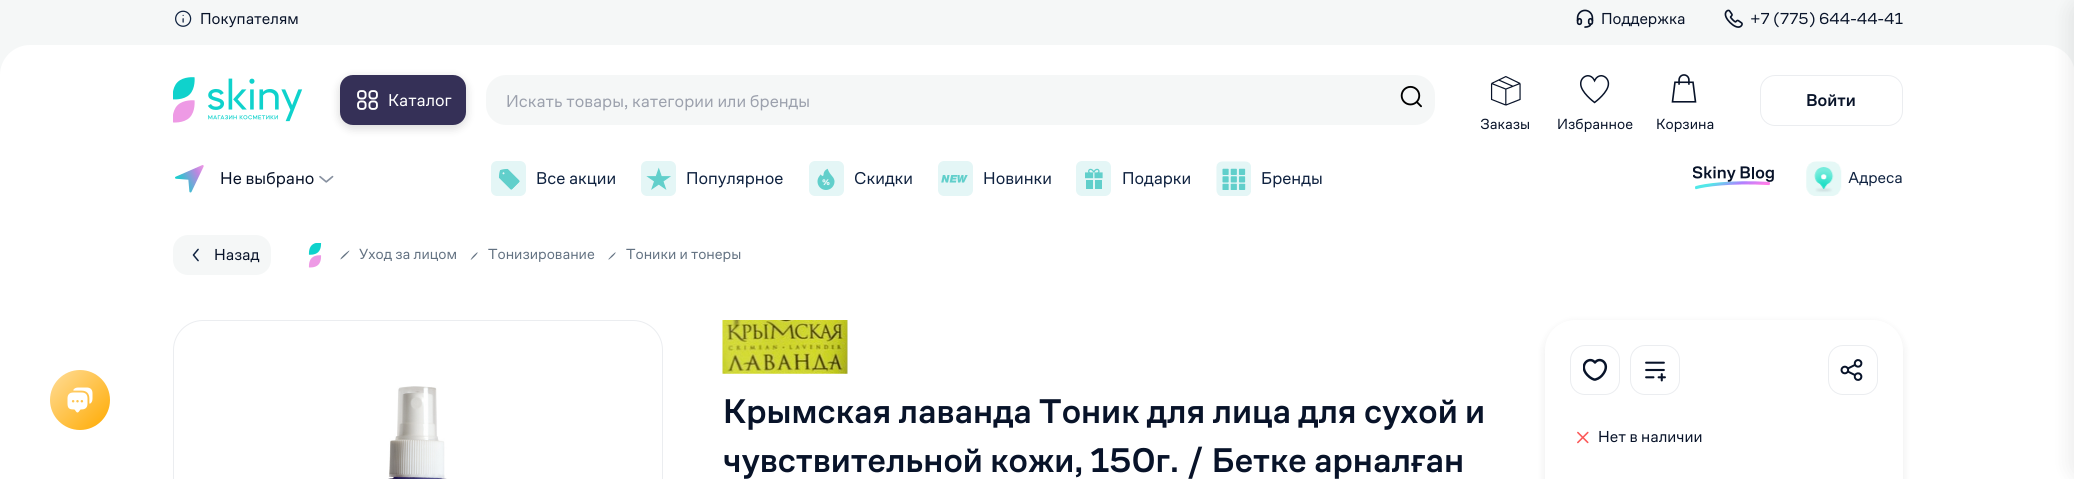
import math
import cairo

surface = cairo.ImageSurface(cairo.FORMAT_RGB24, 2074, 479)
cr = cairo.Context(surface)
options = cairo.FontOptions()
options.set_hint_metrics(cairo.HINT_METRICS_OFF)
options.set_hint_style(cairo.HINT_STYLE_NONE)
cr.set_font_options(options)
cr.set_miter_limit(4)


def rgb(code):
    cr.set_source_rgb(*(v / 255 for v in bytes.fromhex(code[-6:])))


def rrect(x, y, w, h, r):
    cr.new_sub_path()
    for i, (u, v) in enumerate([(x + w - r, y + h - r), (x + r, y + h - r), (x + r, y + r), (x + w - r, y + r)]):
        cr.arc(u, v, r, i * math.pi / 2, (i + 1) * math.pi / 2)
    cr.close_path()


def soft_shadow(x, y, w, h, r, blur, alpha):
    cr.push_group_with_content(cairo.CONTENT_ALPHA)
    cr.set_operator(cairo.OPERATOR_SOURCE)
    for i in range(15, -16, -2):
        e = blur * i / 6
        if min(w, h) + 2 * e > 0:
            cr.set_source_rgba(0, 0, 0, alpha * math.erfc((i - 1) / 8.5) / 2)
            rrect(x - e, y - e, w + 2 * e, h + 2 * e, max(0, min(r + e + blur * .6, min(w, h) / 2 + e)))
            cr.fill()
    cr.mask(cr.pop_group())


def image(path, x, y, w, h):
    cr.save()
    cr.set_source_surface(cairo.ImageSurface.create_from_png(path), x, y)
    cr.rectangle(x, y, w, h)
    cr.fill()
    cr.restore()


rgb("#ffffff")
cr.paint()
rgb("#f5f7f7")
cr.rectangle(0, 0, 2074, 75)
cr.fill()
image("img/1.png", 175, 10, 17, 17)
image("img/2.png", 1576, 9, 18, 19)
image("img/3.png", 1724, 9, 19, 19)
rgb("#ffffff")
cr.new_path()
cr.move_to(30, 45)
cr.line_to(2045, 45)
cr.curve_to(2061.5, 45, 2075, 58.5, 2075, 75)
cr.line_to(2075, 216)
cr.line_to(0, 216)
cr.line_to(0, 75)
cr.curve_to(0, 58.5, 13.5, 45, 30, 45)
cr.close_path()
cr.fill()
image("img/4.png", 173, 77, 130, 46)
rgb("#000000")
soft_shadow(340, 78, 126, 50, 13, 5, 0.16)
rgb("#353057")
rrect(340, 75, 126, 50, 13)
cr.fill()
image("img/5.png", 357, 90, 21, 20)
rgb("#f5f7f7")
rrect(486, 75, 949, 50, 20)
cr.fill()
image("img/6.png", 1400, 85, 22, 23)
rrect(1760.5, 75.5, 142, 50, 14.5)
rgb("#ebedf0")
cr.set_line_width(1)
cr.stroke()
image("img/7.png", 1490, 76, 31, 30)
image("img/8.png", 1580, 75, 30, 29)
image("img/9.png", 1671, 74, 26, 29)
image("img/10.png", 175, 165, 29, 28)
image("img/11.png", 319, 175, 15, 8)
image("img/12.png", 491, 161, 35, 35)
image("img/13.png", 641, 161, 35, 35)
image("img/14.png", 809, 161, 35, 35)
image("img/15.png", 938, 161, 35, 35)
image("img/16.png", 1076, 161, 35, 35)
image("img/17.png", 1216, 161, 35, 35)
image("img/18.png", 1693, 166, 81, 24)
image("img/19.png", 1806, 161, 36, 35)
rgb("#000000")
soft_shadow(2070, 0, 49, 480, 15, 10, 0.08)
image("img/20.png", 50, 370, 60, 60)
rgb("#f5f7f7")
rrect(173, 235, 98, 40, 15)
cr.fill()
image("img/21.png", 192, 248, 7, 14)
image("img/22.png", 308, 243, 14, 25)
rgb("#637282")
cr.new_path()
cr.move_to(349.5, 250.5)
cr.line_to(349, 251.5)
cr.curve_to(347.5, 253.5, 342.5, 258.5, 340.5, 259.5)
cr.line_to(340.5, 259)
cr.curve_to(341, 257, 346.5, 252.5, 348.5, 251)
cr.close_path()
cr.fill()
cr.new_path()
cr.move_to(478, 252.5)
cr.line_to(477.5, 253)
cr.curve_to(476, 255.5, 473.5, 257.5, 471.5, 259.5)
cr.line_to(470.5, 259.5)
cr.line_to(471, 259)
cr.curve_to(472.5, 256.5, 474.5, 254.5, 477, 252.5)
cr.close_path()
cr.fill()
cr.new_path()
cr.move_to(616, 252.5)
cr.line_to(615.5, 253)
cr.curve_to(614, 255.5, 611.5, 257.5, 609, 259.5)
cr.line_to(608.5, 259.5)
cr.line_to(608.5, 259)
cr.curve_to(610.5, 256.5, 612.5, 254.5, 615, 252.5)
cr.close_path()
cr.fill()
rrect(173.5, 320.5, 489, 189, 29.5)
rgb("#ebedf0")
cr.stroke()
image("img/23.png", 388, 386, 59, 93)
image("img/24.png", 722, 320, 126, 54)
rgb("#000000")
soft_shadow(1545, 323, 358, 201, 30, 5, 0.08)
rgb("#ffffff")
rrect(1545, 320, 358, 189, 30)
cr.fill()
rrect(1570.5, 345.5, 49, 49, 14.5)
rgb("#ebedf0")
cr.stroke()
cr.save()
cr.rectangle(1583, 358, 25, 25)
cr.clip()
cr.new_path()
cr.move_to(1595.5, 379.5)
cr.curve_to(1593.5, 380, 1591, 378, 1589.5, 377)
cr.curve_to(1576.5, 366.5, 1589, 355, 1595, 362.5)
cr.curve_to(1600, 356, 1610.5, 363.5, 1603.5, 373.5)
cr.curve_to(1601.5, 376.5, 1599, 378.5, 1595.5, 379.5)
cr.close_path()
rgb("#081329")
cr.set_line_width(2.5)
cr.set_line_cap(cairo.LINE_CAP_ROUND)
cr.set_line_join(cairo.LINE_JOIN_ROUND)
cr.stroke()
cr.restore()
rrect(1630.5, 345.5, 49, 49, 14.5)
cr.stroke()
image("img/25.png", 1645, 361, 21, 21)
rrect(1828.5, 345.5, 49, 49, 14.5)
cr.stroke()
image("img/26.png", 1840, 359, 23, 22)
image("img/27.png", 1577, 431, 12, 13)
cr.select_font_face("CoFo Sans")
cr.set_font_size(16.25)
rgb("#081329")
for x, y, s in [
    (200, 24, "Покупателям"),
    (1601, 24, "Поддержка"),
    (1750, 24, "+7 (775) 644-44-41"),
]:
    cr.move_to(x, y)
    cr.show_text(s)
cr.set_font_size(17.5)
rgb("#ffffff")
cr.move_to(388, 106)
cr.show_text("Каталог")
rgb("#9ca1ad")
cr.move_to(506, 107)
cr.show_text("Искать товары, категории или бренды")
cr.select_font_face("CoFo Sans Medium")
rgb("#081329")
cr.move_to(1806, 106)
cr.show_text("Войти")
cr.select_font_face("CoFo Sans")
cr.set_font_size(15)
for x, y, s in [
    (1480, 129, "Заказы"),
    (1557, 129, "Избранное"),
    (1656, 129, "Корзина"),
]:
    cr.move_to(x, y)
    cr.show_text(s)
cr.set_font_size(17.5)
cr.move_to(220, 184)
cr.show_text("Не выбрано")
rgb("#0f2240")
for x, y, s in [
    (536, 184, "Все акции"),
    (686, 184, "Популярное"),
    (854, 184, "Скидки"),
    (983, 184, "Новинки"),
    (1122, 184, "Подарки"),
    (1261, 184, "Бренды"),
]:
    cr.move_to(x, y)
    cr.show_text(s)
cr.set_font_size(16.25)
cr.move_to(1848, 183)
cr.show_text("Адреса")
rgb("#081329")
cr.move_to(214, 260)
cr.show_text("Назад")
cr.set_font_size(15)
rgb("#637282")
for x, y, s in [
    (359, 259, "Уход за лицом"),
    (488, 259, "Тонизирование"),
    (626, 259, "Тоники и тонеры"),
]:
    cr.move_to(x, y)
    cr.show_text(s)
cr.select_font_face("CoFo Sans Medium")
cr.set_font_size(35)
rgb("#081329")
cr.move_to(723, 423)
cr.show_text("Крымская лаванда Тоник для лица для сухой и")
cr.move_to(723, 472)
cr.show_text("чувствительной кожи, 150г. / Бетке арналған")
cr.select_font_face("CoFo Sans")
cr.set_font_size(16.25)
cr.move_to(1598, 442)
cr.show_text("Нет в наличии")
surface.write_to_png("page.png")
